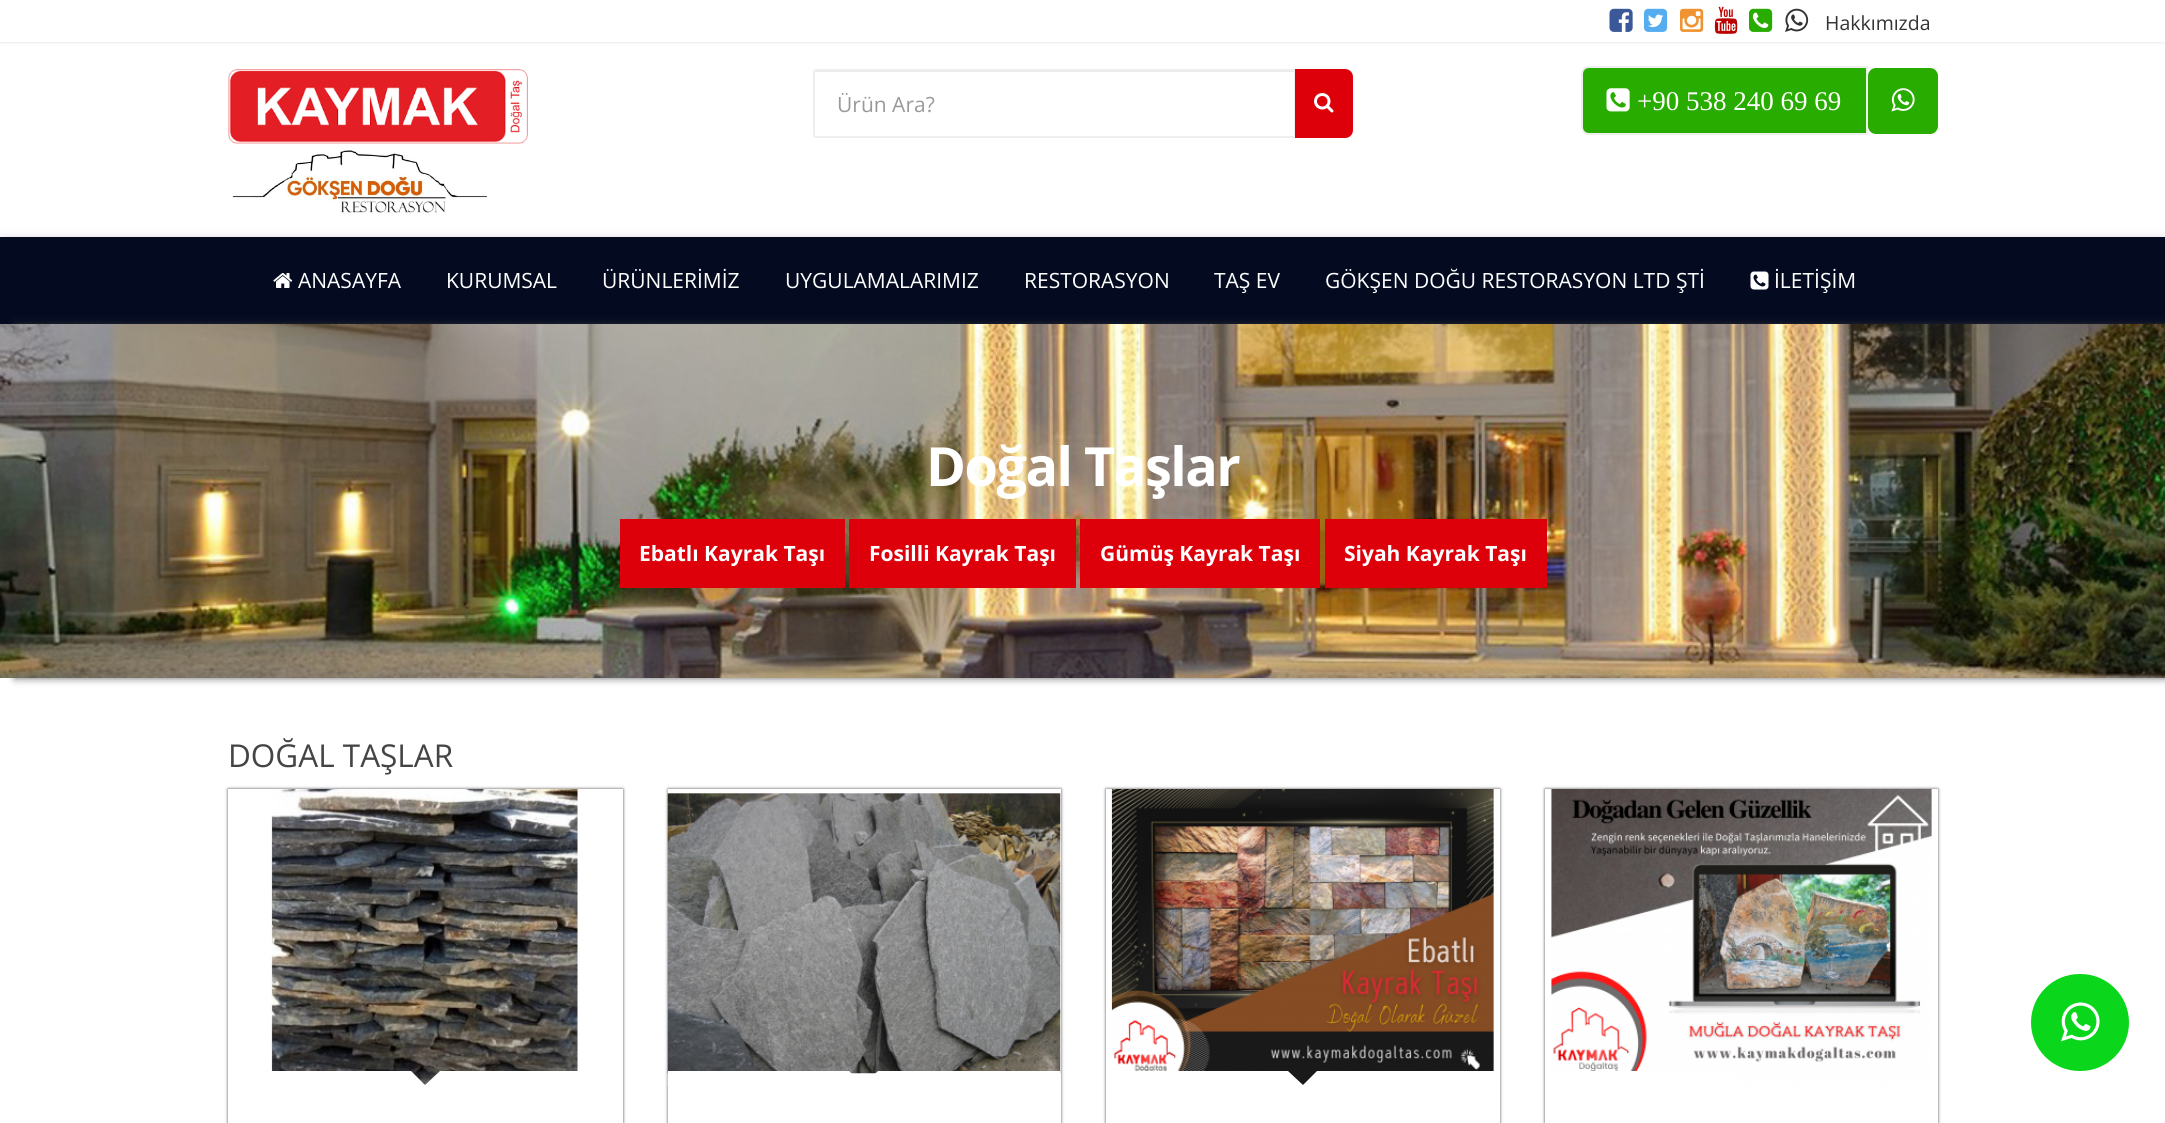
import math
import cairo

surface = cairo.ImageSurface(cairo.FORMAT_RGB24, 2165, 1123)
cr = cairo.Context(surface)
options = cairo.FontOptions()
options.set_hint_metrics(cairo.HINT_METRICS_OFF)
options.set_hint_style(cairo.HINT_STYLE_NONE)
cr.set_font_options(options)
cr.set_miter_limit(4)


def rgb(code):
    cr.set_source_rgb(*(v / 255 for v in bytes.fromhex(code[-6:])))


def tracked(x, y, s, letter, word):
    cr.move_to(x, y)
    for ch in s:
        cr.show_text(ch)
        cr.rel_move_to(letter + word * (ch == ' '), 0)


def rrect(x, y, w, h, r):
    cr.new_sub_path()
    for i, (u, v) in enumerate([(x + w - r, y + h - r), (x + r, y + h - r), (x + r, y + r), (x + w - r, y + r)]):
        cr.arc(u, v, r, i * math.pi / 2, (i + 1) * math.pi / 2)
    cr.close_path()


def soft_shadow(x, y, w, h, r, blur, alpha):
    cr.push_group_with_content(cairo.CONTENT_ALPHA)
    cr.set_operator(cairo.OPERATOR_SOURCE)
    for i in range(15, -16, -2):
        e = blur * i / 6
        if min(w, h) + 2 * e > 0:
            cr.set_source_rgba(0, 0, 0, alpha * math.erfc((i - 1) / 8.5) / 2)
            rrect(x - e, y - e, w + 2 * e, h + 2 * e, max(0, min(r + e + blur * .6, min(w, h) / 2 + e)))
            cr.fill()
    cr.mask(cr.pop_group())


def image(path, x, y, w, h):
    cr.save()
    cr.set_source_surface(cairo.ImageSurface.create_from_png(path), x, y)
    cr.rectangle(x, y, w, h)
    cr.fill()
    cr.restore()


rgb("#ffffff")
cr.paint()
cr.save()
cr.rectangle(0, 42, 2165, 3)
cr.clip()
rgb("#d9dadb")
soft_shadow(0, 0, 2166, 42, 0, 1.5, 1)
cr.restore()
image("img/1.png", 1609, 8, 24, 24)
image("img/2.png", 1644, 8, 24, 24)
image("img/3.png", 1680, 8, 24, 24)
image("img/4.png", 1714, 6, 24, 28)
image("img/5.png", 1749, 8, 24, 24)
image("img/6.png", 1785, 8, 24, 24)
image("img/7.png", 228, 69, 300, 75)
image("img/8.png", 232, 150, 256, 63)
rgb("#ececec")
cr.new_path()
cr.move_to(816, 72)
cr.line_to(1294, 72)
cr.line_to(1294, 137)
cr.line_to(1295, 137)
cr.line_to(1295, 71)
cr.line_to(816, 71)
cr.curve_to(816, 71, 815, 72, 815, 72)
cr.close_path()
cr.fill()
cr.new_path()
cr.move_to(816, 70)
cr.line_to(1295, 70)
cr.line_to(1295, 137)
cr.line_to(816, 137)
cr.curve_to(815, 137, 814, 136, 814, 135)
cr.line_to(814, 72)
cr.curve_to(814, 71, 815, 70, 816, 70)
cr.close_path()
rgb("#eeeeee")
cr.stroke()
rgb("#dd000b")
cr.new_path()
cr.move_to(1296, 70)
cr.line_to(1345, 70)
cr.curve_to(1349, 70, 1352, 73, 1352, 77)
cr.line_to(1352, 130)
cr.curve_to(1352, 134, 1349, 137, 1345, 137)
cr.line_to(1296, 137)
cr.close_path()
cr.fill_preserve()
cr.stroke()
image("img/9.png", 1314, 93, 20, 20)
rgb("#29ac00")
cr.new_path()
cr.move_to(1589, 67)
cr.line_to(1867, 67)
cr.line_to(1867, 134)
cr.line_to(1589, 134)
cr.curve_to(1585, 134, 1582, 131, 1582, 127)
cr.line_to(1582, 74)
cr.curve_to(1582, 70, 1585, 67, 1589, 67)
cr.close_path()
cr.fill_preserve()
rgb("#eeeeee")
cr.stroke()
image("img/10.png", 1606, 88, 24, 24)
rgb("#29ac00")
rrect(1868, 68, 70, 66, 8)
cr.fill()
image("img/11.png", 1891, 88, 24, 24)
rgb("#000000")
soft_shadow(3, 239, 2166, 87, 0, 5, 0.2)
rgb("#040b21")
cr.rectangle(0, 237, 2165, 87)
cr.fill()
image("img/12.png", 273, 273, 20, 15)
image("img/13.png", 1750, 271, 19, 19)
rgb("#323232")
soft_shadow(15, 324, 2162, 354, 0, 4, 0.75)
image("img/14.png", 0, 324, 2165, 354)
for x, y, w, h, color in [
    (620, 519, 225, 69, "#dd000b"),
    (849, 519, 227, 69, "#dd000b"),
    (1080, 519, 240, 69, "#dd000b"),
    (1325, 519, 222, 69, "#dd000b"),
]:
    rgb(color)
    cr.rectangle(x, y, w, h)
    cr.fill()
rgb("#000000")
soft_shadow(228, 789, 395, 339, 0, 1.5, 0.7)
rgb("#ffffff")
cr.rectangle(228, 789, 395, 334)
cr.fill()
image("img/15.png", 269, 789, 311, 296)
cr.new_path()
cr.move_to(426, 1086)
cr.line_to(228, 1086)
cr.line_to(228, 1071)
cr.line_to(411, 1071)
cr.close_path()
cr.fill()
cr.new_path()
cr.move_to(622, 1086)
cr.line_to(424, 1086)
cr.line_to(440, 1071)
cr.line_to(622, 1071)
cr.close_path()
cr.fill()
rgb("#000000")
soft_shadow(668, 789, 393, 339, 0, 1.5, 0.7)
rgb("#ffffff")
cr.rectangle(668, 789, 393, 334)
cr.fill()
image("img/16.png", 667, 789, 394, 297)
cr.new_path()
cr.move_to(864, 1086)
cr.line_to(668, 1086)
cr.line_to(668, 1071)
cr.line_to(849, 1071)
cr.close_path()
cr.fill()
cr.new_path()
cr.move_to(1060, 1086)
cr.line_to(862, 1086)
cr.line_to(878, 1071)
cr.line_to(1060, 1071)
cr.close_path()
cr.fill()
cr.save()
cr.set_fill_rule(cairo.FILL_RULE_EVEN_ODD)
cr.new_path()
cr.move_to(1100, 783)
cr.line_to(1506, 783)
cr.line_to(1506, 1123)
cr.line_to(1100, 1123)
cr.close_path()
cr.move_to(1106, 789)
cr.line_to(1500, 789)
cr.line_to(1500, 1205)
cr.line_to(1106, 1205)
cr.close_path()
cr.clip()
rgb("#000000")
soft_shadow(1106, 789, 394, 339, 0, 1.5, 0.7)
cr.restore()
image("img/17.png", 1111, 789, 383, 296)
cr.new_path()
cr.move_to(1304, 1086)
cr.line_to(1106, 1086)
cr.line_to(1106, 1071)
cr.line_to(1288, 1071)
cr.close_path()
cr.fill()
cr.new_path()
cr.move_to(1500, 1086)
cr.line_to(1302, 1086)
cr.line_to(1317, 1071)
cr.line_to(1500, 1071)
cr.close_path()
cr.fill()
cr.save()
cr.set_fill_rule(cairo.FILL_RULE_EVEN_ODD)
cr.new_path()
cr.move_to(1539, 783)
cr.line_to(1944, 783)
cr.line_to(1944, 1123)
cr.line_to(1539, 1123)
cr.close_path()
cr.move_to(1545, 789)
cr.line_to(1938, 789)
cr.line_to(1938, 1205)
cr.line_to(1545, 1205)
cr.close_path()
cr.clip()
rgb("#000000")
soft_shadow(1545, 789, 393, 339, 0, 1.5, 0.7)
cr.restore()
image("img/18.png", 1551, 789, 381, 297)
cr.new_path()
cr.move_to(1742, 1086)
cr.line_to(1545, 1086)
cr.line_to(1545, 1071)
cr.line_to(1726, 1071)
cr.close_path()
cr.fill()
rgb("#0ad61b")
rrect(2031, 974, 98, 97, 48.5)
cr.fill()
image("img/19.png", 2061, 1002, 39, 40)
cr.select_font_face("Open Sans")
cr.set_font_size(19.5)
rgb("#333333")
cr.move_to(1825, 30)
cr.show_text("Hakkımızda")
cr.set_font_size(21)
rgb("#999999")
cr.move_to(837, 112)
cr.show_text("Ürün Ara?")
cr.select_font_face("Liberation Serif")
cr.set_font_size(27)
rgb("#ffffff")
cr.move_to(1637, 110)
cr.show_text("+90 538 240 69 69")
cr.select_font_face("Open Sans")
cr.set_font_size(21)
for x, y, s in [
    (298, 288, "ANASAYFA"),
    (446, 288, "KURUMSAL"),
    (602, 288, "ÜRÜNLERİMİZ"),
    (785, 288, "UYGULAMALARIMIZ"),
    (1024, 288, "RESTORASYON"),
    (1214, 288, "TAŞ EV"),
    (1325, 288, "GÖKŞEN DOĞU RESTORASYON LTD ŞTİ"),
    (1774, 288, "İLETİŞİM"),
]:
    cr.move_to(x, y)
    cr.show_text(s)
cr.select_font_face("Open Sans", cairo.FONT_SLANT_NORMAL, cairo.FONT_WEIGHT_BOLD)
cr.set_font_size(54)
tracked(926, 486, "Doğal Taşlar", -1.5, 0)
cr.set_font_size(21)
for x, y, s in [
    (639, 561, "Ebatlı Kayrak Taşı"),
    (869, 561, "Fosilli Kayrak Taşı"),
    (1100, 561, "Gümüş Kayrak Taşı"),
    (1344, 561, "Siyah Kayrak Taşı"),
]:
    cr.move_to(x, y)
    cr.show_text(s)
cr.select_font_face("Open Sans")
cr.set_font_size(31.5)
rgb("#444444")
cr.move_to(228, 767)
cr.show_text("DOĞAL TAŞLAR")
surface.write_to_png("page.png")
